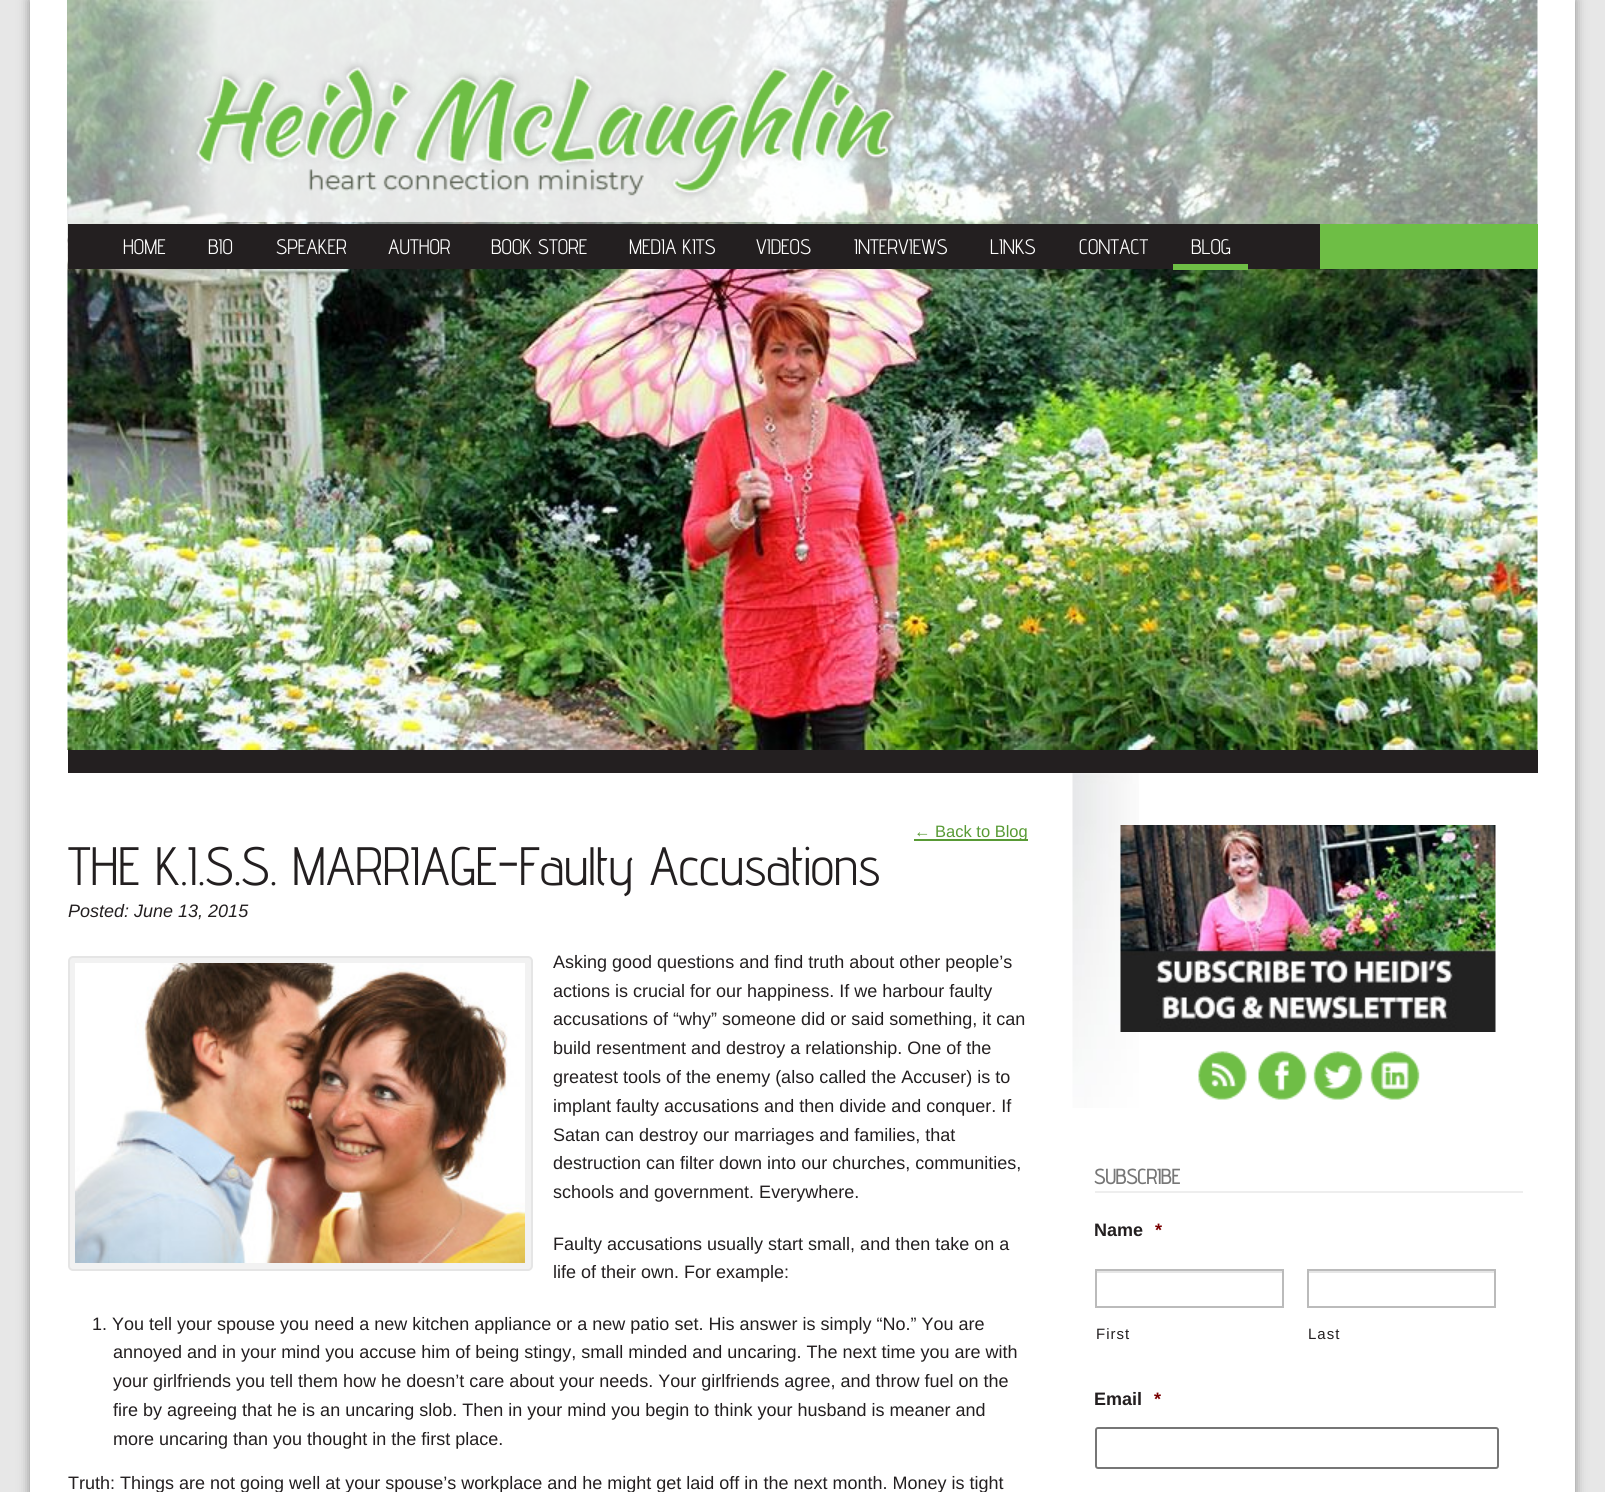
import math
import cairo

surface = cairo.ImageSurface(cairo.FORMAT_RGB24, 1605, 1492)
cr = cairo.Context(surface)
options = cairo.FontOptions()
options.set_hint_metrics(cairo.HINT_METRICS_OFF)
options.set_hint_style(cairo.HINT_STYLE_NONE)
cr.set_font_options(options)
cr.set_miter_limit(4)


def rgb(code):
    cr.set_source_rgb(*(v / 255 for v in bytes.fromhex(code[-6:])))


def tracked(x, y, s, letter, word):
    cr.move_to(x, y)
    for ch in s:
        cr.show_text(ch)
        cr.rel_move_to(letter + word * (ch == ' '), 0)


def rrect(x, y, w, h, r):
    cr.new_sub_path()
    for i, (u, v) in enumerate([(x + w - r, y + h - r), (x + r, y + h - r), (x + r, y + r), (x + w - r, y + r)]):
        cr.arc(u, v, r, i * math.pi / 2, (i + 1) * math.pi / 2)
    cr.close_path()


def soft_shadow(x, y, w, h, r, blur, alpha):
    cr.push_group_with_content(cairo.CONTENT_ALPHA)
    cr.set_operator(cairo.OPERATOR_SOURCE)
    for i in range(15, -16, -2):
        e = blur * i / 6
        if min(w, h) + 2 * e > 0:
            cr.set_source_rgba(0, 0, 0, alpha * math.erfc((i - 1) / 8.5) / 2)
            rrect(x - e, y - e, w + 2 * e, h + 2 * e, max(0, min(r + e + blur * .6, min(w, h) / 2 + e)))
            cr.fill()
    cr.mask(cr.pop_group())


def image(path, x, y, w, h):
    cr.save()
    cr.set_source_surface(cairo.ImageSurface.create_from_png(path), x, y)
    cr.rectangle(x, y, w, h)
    cr.fill()
    cr.restore()


rgb("#e7e7e7")
cr.paint()
rgb("#000000")
soft_shadow(30, 0, 1545, 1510, 0, 6, 0.4)
rgb("#ffffff")
cr.rectangle(30, 0, 1545, 1492)
cr.fill()
image("img/1.png", 67, 0, 1471, 750)
rgb("#231f20")
cr.rectangle(68, 750, 1470, 23)
cr.fill()
cr.set_source_rgba(1, 1, 1, 0.5)
cr.rectangle(68, 0, 1470, 224)
cr.fill()
image("img/2.png", 132, 0, 782, 222)
for x, y, w, h, color in [
    (1320, 224, 218, 45, "#6ebe45"),
    (68, 224, 1252, 45, "#231f20"),
    (1173, 264, 75, 6, "#6ebe45"),
    (914, 839, 114, 2, "#589a35"),
]:
    rgb(color)
    cr.rectangle(x, y, w, h)
    cr.fill()
rgb("#f2f2f2")
rrect(69, 957, 463, 313, 4)
cr.fill_preserve()
rgb("#e5e5e5")
cr.stroke()
image("img/3.png", 75, 963, 450, 300)
image("img/4.png", 1072, 773, 67, 335)
image("img/5.png", 1120, 825, 376, 207)
image("img/6.png", 1198, 1051, 49, 49)
image("img/7.png", 1258, 1051, 49, 49)
image("img/8.png", 1313, 1051, 50, 49)
image("img/9.png", 1370, 1051, 50, 49)
rgb("#eeeeee")
cr.rectangle(1095, 1191, 428, 2)
cr.fill()
rgb("#e6e6e6")
cr.rectangle(1097, 1271, 186, 2)
cr.fill()
cr.rectangle(1096, 1270, 187, 37)
rgb("#bbbbbb")
cr.stroke()
rgb("#e6e6e6")
cr.rectangle(1308, 1271, 186, 2)
cr.fill()
cr.rectangle(1308, 1270, 187, 37)
rgb("#bbbbbb")
cr.stroke()
rrect(1096, 1428, 402, 40, 2)
rgb("#767676")
cr.stroke()
cr.select_font_face("Advent Pro")
cr.set_font_size(21)
rgb("#ffffff")
for x, y, s in [
    (123, 254, "HOME"),
    (208, 254, "BIO"),
    (276, 254, "SPEAKER"),
    (388, 254, "AUTHOR"),
    (491, 254, "BOOK STORE"),
    (629, 254, "MEDIA KITS"),
    (756, 254, "VIDEOS"),
    (854, 254, "INTERVIEWS"),
    (990, 254, "LINKS"),
    (1079, 254, "CONTACT"),
    (1191, 254, "BLOG"),
]:
    cr.move_to(x, y)
    cr.show_text(s)
cr.select_font_face("Liberation Sans")
cr.set_font_size(16.5)
rgb("#589a35")
cr.move_to(914, 837)
cr.show_text("← Back to Blog")
cr.select_font_face("Advent Pro")
cr.set_font_size(54)
rgb("#231f20")
cr.move_to(68, 885)
cr.show_text("THE K.I.S.S. MARRIAGE-Faulty Accusations")
cr.select_font_face("Liberation Sans", cairo.FONT_SLANT_ITALIC)
cr.set_font_size(18)
cr.move_to(68, 917)
cr.show_text("Posted: June 13, 2015")
cr.select_font_face("Liberation Sans")
for x, y, s in [
    (553, 968, "Asking good questions and find truth about other people’s"),
    (553, 997, "actions is crucial for our happiness. If we harbour faulty"),
    (553, 1025, "accusations of “why” someone did or said something, it can"),
    (553, 1054, "build resentment and destroy a relationship. One of the"),
    (553, 1083, "greatest tools of the enemy (also called the Accuser) is to"),
    (553, 1112, "implant faulty accusations and then divide and conquer. If"),
    (553, 1141, "Satan can destroy our marriages and families, that"),
    (553, 1169, "destruction can filter down into our churches, communities,"),
    (553, 1198, "schools and government. Everywhere."),
    (553, 1250, "Faulty accusations usually start small, and then take on a"),
    (553, 1278, "life of their own. For example:"),
    (92, 1330, "1. You tell your spouse you need a new kitchen appliance or a new patio set. His answer is simply “No.” You are"),
    (113, 1358, "annoyed and in your mind you accuse him of being stingy, small minded and uncaring. The next time you are with"),
    (113, 1387, "your girlfriends you tell them how he doesn’t care about your needs. Your girlfriends agree, and throw fuel on the"),
    (113, 1416, "fire by agreeing that he is an uncaring slob. Then in your mind you begin to think your husband is meaner and"),
    (113, 1445, "more uncaring than you thought in the first place."),
    (68, 1489, "Truth: Things are not going well at your spouse’s workplace and he might get laid off in the next month. Money is tight"),
]:
    cr.move_to(x, y)
    cr.show_text(s)
cr.select_font_face("Advent Pro", cairo.FONT_SLANT_NORMAL, cairo.FONT_WEIGHT_BOLD)
cr.set_font_size(21)
rgb("#777777")
cr.move_to(1094, 1184)
cr.show_text("SUBSCRIBE")
cr.select_font_face("Liberation Sans", cairo.FONT_SLANT_NORMAL, cairo.FONT_WEIGHT_BOLD)
cr.set_font_size(18)
rgb("#231f20")
cr.move_to(1094, 1236)
cr.show_text("Name")
rgb("#790000")
cr.move_to(1155, 1236)
cr.show_text("*")
cr.select_font_face("Liberation Sans")
cr.set_font_size(15)
rgb("#231f20")
tracked(1096, 1339, "First", 1, 0)
tracked(1308, 1339, "Last", 1, 0)
cr.select_font_face("Liberation Sans", cairo.FONT_SLANT_NORMAL, cairo.FONT_WEIGHT_BOLD)
cr.set_font_size(18)
cr.move_to(1094, 1405)
cr.show_text("Email")
rgb("#790000")
cr.move_to(1154, 1405)
cr.show_text("*")
surface.write_to_png("page.png")
